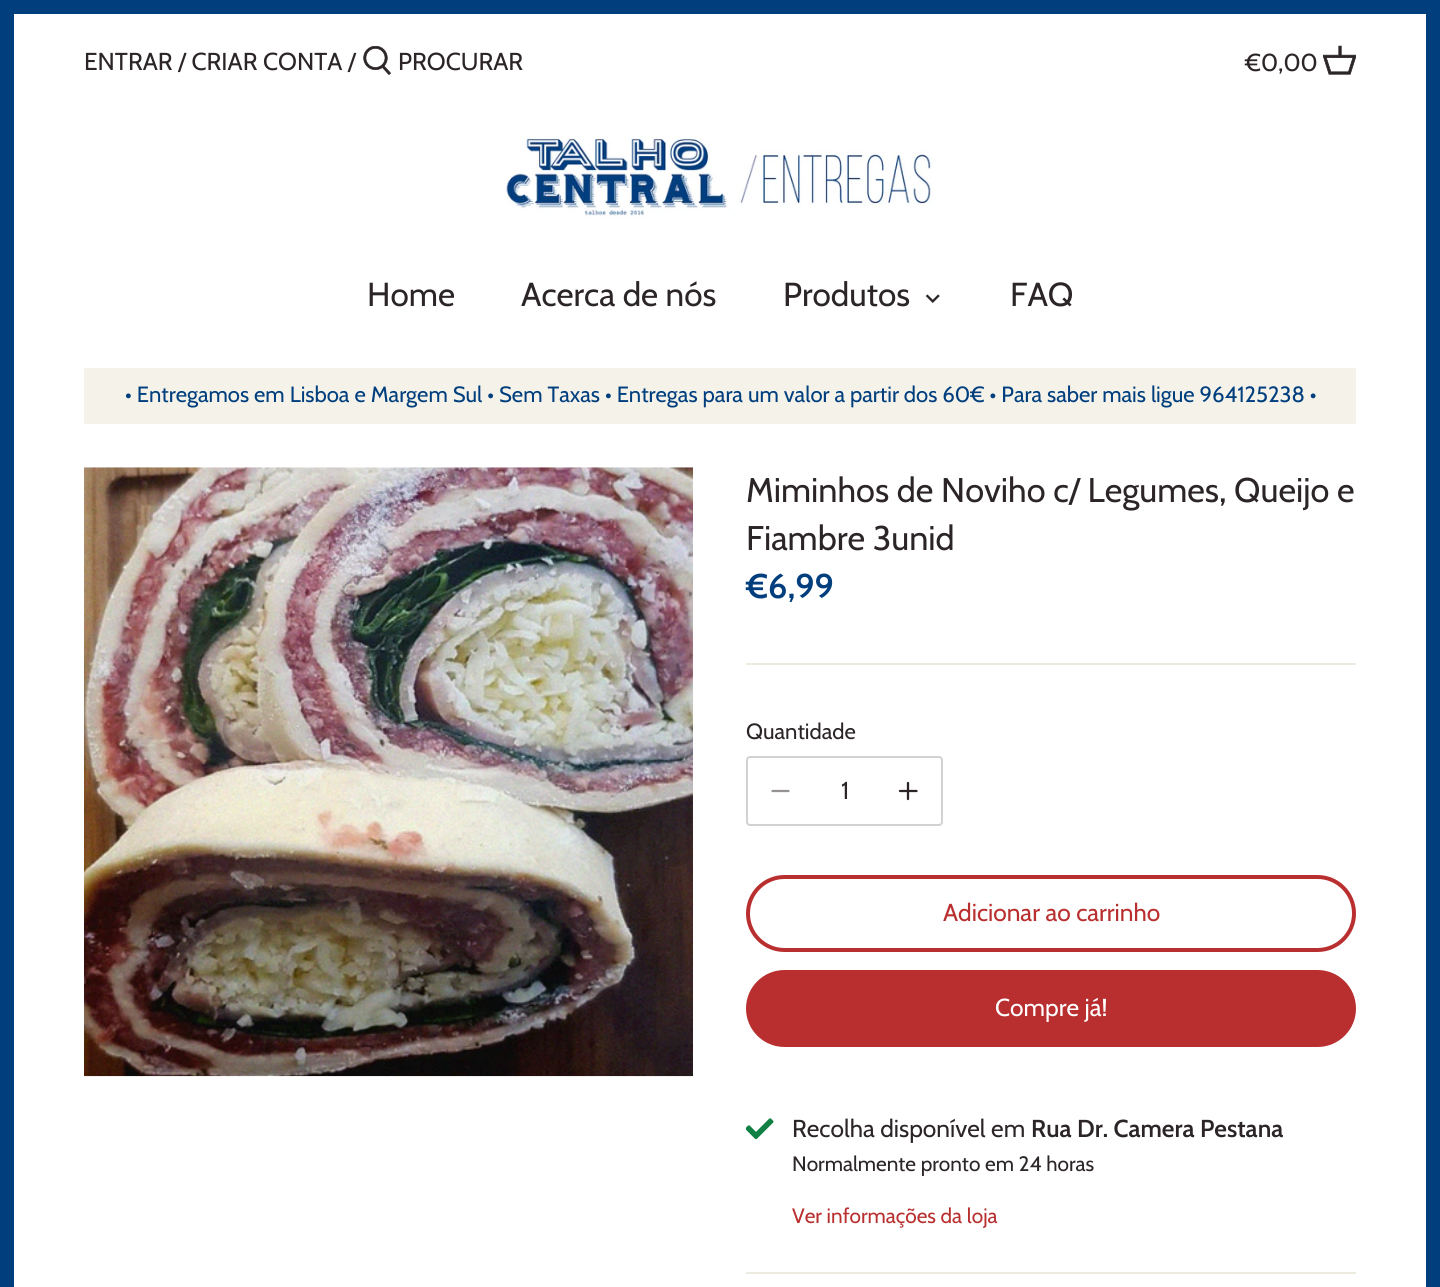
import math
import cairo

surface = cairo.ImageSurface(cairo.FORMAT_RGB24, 1440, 1287)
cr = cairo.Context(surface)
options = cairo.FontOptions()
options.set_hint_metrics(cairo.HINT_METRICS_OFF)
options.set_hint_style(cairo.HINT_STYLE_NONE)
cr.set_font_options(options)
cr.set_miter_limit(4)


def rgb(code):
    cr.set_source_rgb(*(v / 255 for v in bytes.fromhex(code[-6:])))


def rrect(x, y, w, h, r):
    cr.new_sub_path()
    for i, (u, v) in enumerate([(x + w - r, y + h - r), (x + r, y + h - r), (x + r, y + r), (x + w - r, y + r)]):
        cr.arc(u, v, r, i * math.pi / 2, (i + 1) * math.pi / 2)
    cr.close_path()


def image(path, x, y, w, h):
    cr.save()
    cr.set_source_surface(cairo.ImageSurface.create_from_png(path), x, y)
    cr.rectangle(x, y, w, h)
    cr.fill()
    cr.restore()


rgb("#ffffff")
cr.paint()
cr.rectangle(7, 7, 1426, 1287)
rgb("#003e7e")
cr.set_line_width(14)
cr.stroke()
image("img/1.png", 363, 46, 28, 29)
image("img/2.png", 1323, 45, 33, 30)
image("img/3.png", 505, 135, 429, 83)
image("img/4.png", 925, 294, 15, 9)
rgb("#f4f2e9")
cr.rectangle(84, 368, 1272, 56)
cr.fill()
image("img/5.png", 84, 467, 609, 610)
rgb("#edebdf")
cr.rectangle(746, 663, 610, 2)
cr.fill()
cr.rectangle(746, 1272, 610, 2)
cr.fill()
rrect(747, 757, 195, 68, 3)
rgb("#d3d1d2")
cr.set_line_width(2)
cr.stroke()
cr.new_path()
cr.move_to(772.5, 791)
cr.line_to(788.5, 791)
rgb("#969294")
cr.set_line_width(2.3)
cr.set_line_cap(cairo.LINE_CAP_ROUND)
cr.set_line_join(cairo.LINE_JOIN_ROUND)
cr.stroke()
cr.new_path()
cr.move_to(908, 783)
cr.line_to(908, 799)
cr.move_to(900, 791)
cr.line_to(916.5, 791)
rgb("#2c2528")
cr.stroke()
rrect(748, 877, 606, 73, 36.5)
rgb("#b92f2f")
cr.set_line_width(4)
cr.set_line_cap(cairo.LINE_CAP_BUTT)
cr.set_line_join(cairo.LINE_JOIN_MITER)
cr.stroke()
rrect(746, 970, 610, 77, 38.5)
cr.fill()
image("img/6.png", 746, 1118, 28, 22)
cr.select_font_face("Cabin")
cr.set_font_size(24.5)
rgb("#2c2528")
for x, y, s in [
    (84, 70, "ENTRAR / CRIAR CONTA /"),
    (398, 70, "PROCURAR"),
    (1245, 71, "€0,00"),
]:
    cr.move_to(x, y)
    cr.show_text(s)
cr.set_font_size(33.25)
for x, y, s in [
    (367, 306, "Home"),
    (521, 306, "Acerca de nós"),
    (783, 306, "Produtos"),
    (1010, 306, "FAQ"),
]:
    cr.move_to(x, y)
    cr.show_text(s)
cr.set_font_size(22.05)
rgb("#003e7e")
cr.move_to(125, 402)
cr.show_text("• Entregamos em Lisboa e Margem Sul • Sem Taxas • Entregas para um valor a partir dos 60€ • Para saber mais ligue 964125238 •")
cr.set_font_size(34.25)
rgb("#2c2528")
cr.move_to(746, 502)
cr.show_text("Miminhos de Noviho c/ Legumes, Queijo e")
cr.move_to(746, 550)
cr.show_text("Fiambre 3unid")
cr.select_font_face("Cabin SemiBold")
rgb("#003e7e")
cr.move_to(746, 598)
cr.show_text("€6,99")
cr.select_font_face("Cabin")
cr.set_font_size(22.05)
rgb("#2c2528")
cr.move_to(746, 739)
cr.show_text("Quantidade")
cr.set_font_size(24.5)
cr.move_to(841, 799)
cr.show_text("1")
rgb("#b92f2f")
cr.move_to(943, 921)
cr.show_text("Adicionar ao carrinho")
rgb("#ffffff")
cr.move_to(995, 1016)
cr.show_text("Compre já!")
rgb("#2c2528")
cr.move_to(792, 1137)
cr.show_text("Recolha disponível em")
cr.select_font_face("Cabin SemiBold")
cr.move_to(1031, 1137)
cr.show_text("Rua Dr. Camera Pestana")
cr.select_font_face("Cabin")
cr.set_font_size(20.8)
cr.move_to(792, 1171)
cr.show_text("Normalmente pronto em 24 horas")
rgb("#b92f2f")
cr.move_to(792, 1223)
cr.show_text("Ver informações da loja")
surface.write_to_png("page.png")
